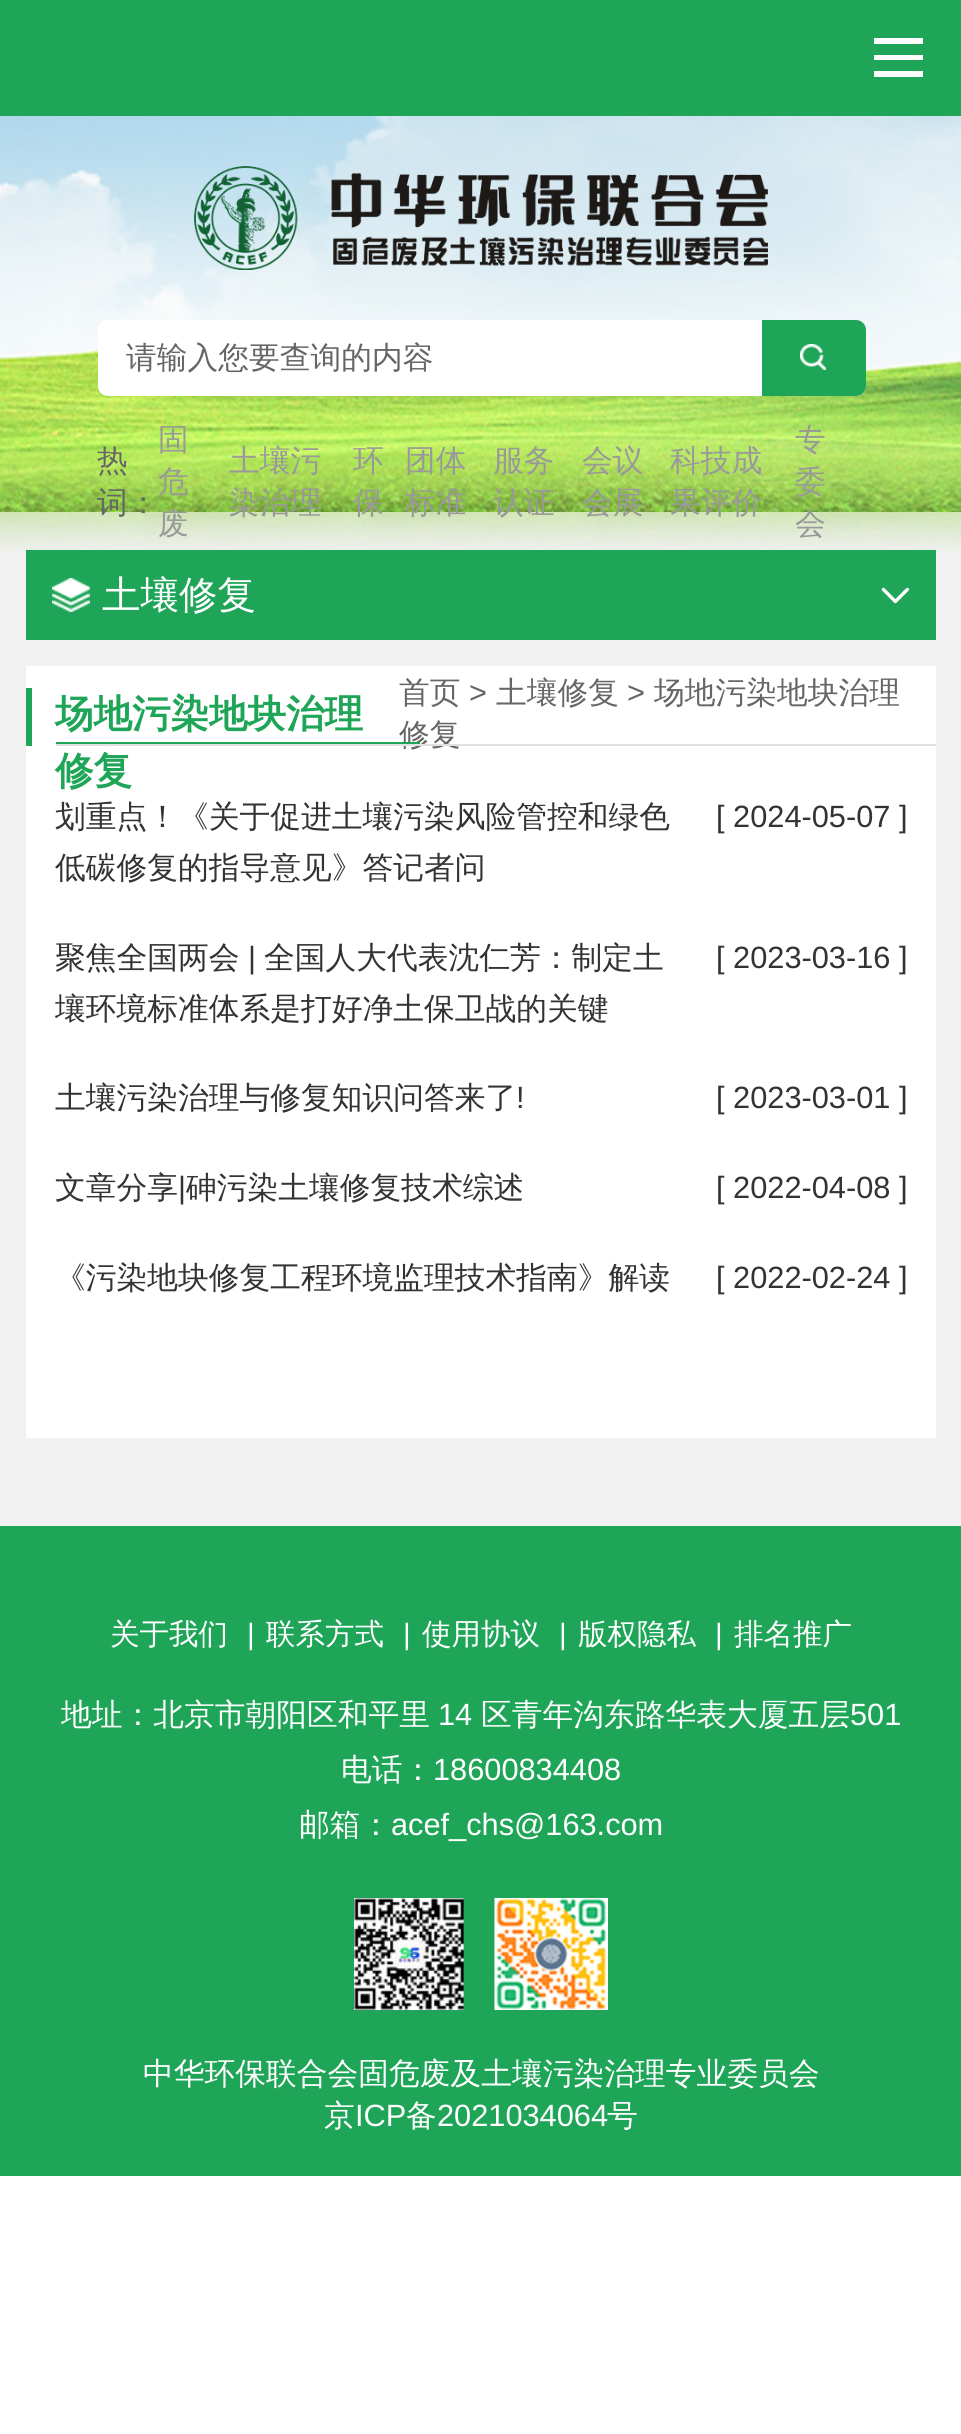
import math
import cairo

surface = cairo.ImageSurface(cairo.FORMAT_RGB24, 961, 2434)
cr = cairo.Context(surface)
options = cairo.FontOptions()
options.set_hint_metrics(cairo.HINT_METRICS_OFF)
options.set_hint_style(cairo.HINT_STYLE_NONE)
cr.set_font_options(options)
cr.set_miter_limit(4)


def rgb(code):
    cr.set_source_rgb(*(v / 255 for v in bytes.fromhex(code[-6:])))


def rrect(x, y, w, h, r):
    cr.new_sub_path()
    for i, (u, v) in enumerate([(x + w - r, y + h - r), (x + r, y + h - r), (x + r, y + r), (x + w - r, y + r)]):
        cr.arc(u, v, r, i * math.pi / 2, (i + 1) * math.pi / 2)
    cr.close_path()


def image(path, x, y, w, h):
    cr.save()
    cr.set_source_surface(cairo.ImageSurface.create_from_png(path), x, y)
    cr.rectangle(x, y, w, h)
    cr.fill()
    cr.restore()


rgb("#ffffff")
cr.paint()
image("img/1.png", 0, 116, 961, 396)
rgb("#1ea557")
cr.rectangle(0, 0, 961, 116)
cr.fill()
rgb("#ffffff")
cr.new_path()
cr.move_to(874, 77)
cr.line_to(874, 71)
cr.line_to(923, 71)
cr.line_to(923, 77)
cr.close_path()
cr.move_to(874, 55)
cr.line_to(923, 55)
cr.line_to(923, 60)
cr.line_to(874, 60)
cr.close_path()
cr.move_to(874, 38)
cr.line_to(923, 38)
cr.line_to(923, 44)
cr.line_to(874, 44)
cr.close_path()
cr.fill()
image("img/2.png", 194, 166, 574, 104)
rrect(98, 320, 768, 76, 10)
cr.fill()
rgb("#1ea557")
cr.new_path()
cr.move_to(762, 320)
cr.line_to(856, 320)
cr.curve_to(861.5, 320, 866, 324.5, 866, 330)
cr.line_to(866, 386)
cr.curve_to(866, 391.5, 861.5, 396, 856, 396)
cr.line_to(762, 396)
cr.close_path()
cr.fill()
image("img/3.png", 800, 344, 26, 26)
rgb("#f1f1f1")
cr.rectangle(0, 552, 961, 974)
cr.fill()
image("img/4.png", 0, 512, 961, 40)
rgb("#1ea557")
cr.rectangle(26, 550, 910, 90)
cr.fill()
image("img/5.png", 52, 578, 38, 34)
image("img/6.png", 881, 587, 28, 17)
for x, y, w, h, color in [
    (26, 666, 910, 772, "#ffffff"),
    (26, 688, 6, 58, "#1ea557"),
    (0, 1526, 961, 650, "#1ea557"),
]:
    rgb(color)
    cr.rectangle(x, y, w, h)
    cr.fill()
image("img/7.png", 354, 1898, 254, 112)
cr.select_font_face("WenQuanYi Zen Hei Medium")
cr.set_font_size(30.75)
rgb("#666666")
for x, y, s in [
    (126, 368, "请输入您要查询的内容"),
    (97, 471, "热"),
    (97, 513, "词："),
]:
    cr.move_to(x, y)
    cr.show_text(s)
rgb("#999999")
for x, y, s in [
    (158, 450, "固"),
    (158, 492, "危"),
    (158, 534, "废"),
    (229, 471, "土壤污"),
    (229, 513, "染治理"),
    (353, 471, "环"),
    (353, 513, "保"),
    (405, 471, "团体"),
    (405, 513, "标准"),
    (493, 471, "服务"),
    (493, 513, "认证"),
    (582, 471, "会议"),
    (582, 513, "会展"),
    (670, 471, "科技成"),
    (670, 513, "果评价"),
    (795, 450, "专"),
    (795, 492, "委"),
    (795, 534, "会"),
]:
    cr.move_to(x, y)
    cr.show_text(s)
cr.set_font_size(38.5)
rgb("#ffffff")
cr.move_to(102, 608)
cr.show_text("土壤修复")
cr.select_font_face("WenQuanYi Zen Hei", cairo.FONT_SLANT_NORMAL, cairo.FONT_WEIGHT_BOLD)
rgb("#1ea557")
cr.move_to(55, 727)
cr.show_text("场地污染地块治理")
cr.move_to(55, 784)
cr.show_text("修复")
cr.select_font_face("WenQuanYi Zen Hei Medium")
cr.set_font_size(30.75)
rgb("#666666")
cr.move_to(399, 703)
cr.show_text("首页")
cr.select_font_face("Liberation Sans")
cr.move_to(469, 703)
cr.show_text(">")
cr.select_font_face("WenQuanYi Zen Hei Medium")
cr.move_to(496, 703)
cr.show_text("土壤修复")
cr.select_font_face("Liberation Sans")
cr.move_to(627, 703)
cr.show_text(">")
cr.select_font_face("WenQuanYi Zen Hei Medium")
cr.move_to(654, 703)
cr.show_text("场地污染地块治理")
cr.move_to(399, 745)
cr.show_text("修复")
rgb("#1ea557")
cr.rectangle(56, 742, 364, 2)
cr.fill()
rgb("#e1e1e1")
cr.rectangle(56, 744, 880, 2)
cr.fill()
rgb("#333333")
cr.move_to(55, 827)
cr.show_text("划重点！《关于促进土壤污染风险管控和绿色")
cr.move_to(55, 878)
cr.show_text("低碳修复的指导意见》答记者问")
cr.select_font_face("Liberation Sans")
cr.move_to(716, 827)
cr.show_text("[ 2024-05-07 ]")
cr.select_font_face("WenQuanYi Zen Hei Medium")
cr.move_to(55, 968)
cr.show_text("聚焦全国两会")
cr.select_font_face("Liberation Sans")
cr.move_to(248, 968)
cr.show_text("|")
cr.select_font_face("WenQuanYi Zen Hei Medium")
cr.move_to(264, 968)
cr.show_text("全国人大代表沈仁芳：制定土")
cr.move_to(55, 1019)
cr.show_text("壤环境标准体系是打好净土保卫战的关键")
cr.select_font_face("Liberation Sans")
cr.move_to(716, 968)
cr.show_text("[ 2023-03-16 ]")
cr.select_font_face("WenQuanYi Zen Hei Medium")
cr.move_to(55, 1108)
cr.show_text("土壤污染治理与修复知识问答来了")
cr.select_font_face("Liberation Sans")
cr.move_to(516, 1108)
cr.show_text("!")
cr.move_to(716, 1108)
cr.show_text("[ 2023-03-01 ]")
cr.select_font_face("WenQuanYi Zen Hei Medium")
cr.move_to(55, 1198)
cr.show_text("文章分享")
cr.select_font_face("Liberation Sans")
cr.move_to(178, 1198)
cr.show_text("|")
cr.select_font_face("WenQuanYi Zen Hei Medium")
cr.move_to(186, 1198)
cr.show_text("砷污染土壤修复技术综述")
cr.select_font_face("Liberation Sans")
cr.move_to(716, 1198)
cr.show_text("[ 2022-04-08 ]")
cr.select_font_face("WenQuanYi Zen Hei Medium")
cr.move_to(55, 1288)
cr.show_text("《污染地块修复工程环境监理技术指南》解读")
cr.select_font_face("Liberation Sans")
cr.move_to(716, 1288)
cr.show_text("[ 2022-02-24 ]")
cr.select_font_face("WenQuanYi Zen Hei Medium")
cr.set_font_size(29.5)
rgb("#ffffff")
cr.move_to(110, 1644)
cr.show_text("关于我们")
cr.select_font_face("Liberation Sans")
cr.move_to(247, 1644)
cr.show_text("|")
cr.select_font_face("WenQuanYi Zen Hei Medium")
cr.move_to(266, 1644)
cr.show_text("联系方式")
cr.select_font_face("Liberation Sans")
cr.move_to(403, 1644)
cr.show_text("|")
cr.select_font_face("WenQuanYi Zen Hei Medium")
cr.move_to(422, 1644)
cr.show_text("使用协议")
cr.select_font_face("Liberation Sans")
cr.move_to(559, 1644)
cr.show_text("|")
cr.select_font_face("WenQuanYi Zen Hei Medium")
cr.move_to(578, 1644)
cr.show_text("版权隐私")
cr.select_font_face("Liberation Sans")
cr.move_to(715, 1644)
cr.show_text("|")
cr.select_font_face("WenQuanYi Zen Hei Medium")
cr.move_to(734, 1644)
cr.show_text("排名推广")
cr.set_font_size(30.75)
cr.move_to(61, 1725)
cr.show_text("地址：北京市朝阳区和平里")
cr.select_font_face("Liberation Sans")
cr.move_to(438, 1725)
cr.show_text("14")
cr.select_font_face("WenQuanYi Zen Hei Medium")
cr.move_to(481, 1725)
cr.show_text("区青年沟东路华表大厦五层")
cr.select_font_face("Liberation Sans")
cr.move_to(850, 1725)
cr.show_text("501")
cr.select_font_face("WenQuanYi Zen Hei Medium")
cr.move_to(341, 1780)
cr.show_text("电话：")
cr.select_font_face("Liberation Sans")
cr.move_to(433, 1780)
cr.show_text("18600834408")
cr.select_font_face("WenQuanYi Zen Hei Medium")
cr.move_to(299, 1835)
cr.show_text("邮箱：")
cr.select_font_face("Liberation Sans")
cr.move_to(391, 1835)
cr.show_text("acef_chs@163.com")
cr.select_font_face("WenQuanYi Zen Hei Medium")
cr.move_to(143, 2084)
cr.show_text("中华环保联合会固危废及土壤污染治理专业委员会")
cr.move_to(324, 2126)
cr.show_text("京")
cr.select_font_face("Liberation Sans")
cr.move_to(355, 2126)
cr.show_text("ICP")
cr.select_font_face("WenQuanYi Zen Hei Medium")
cr.move_to(406, 2126)
cr.show_text("备")
cr.select_font_face("Liberation Sans")
cr.move_to(437, 2126)
cr.show_text("2021034064")
cr.select_font_face("WenQuanYi Zen Hei Medium")
cr.move_to(607, 2126)
cr.show_text("号")
surface.write_to_png("page.png")
